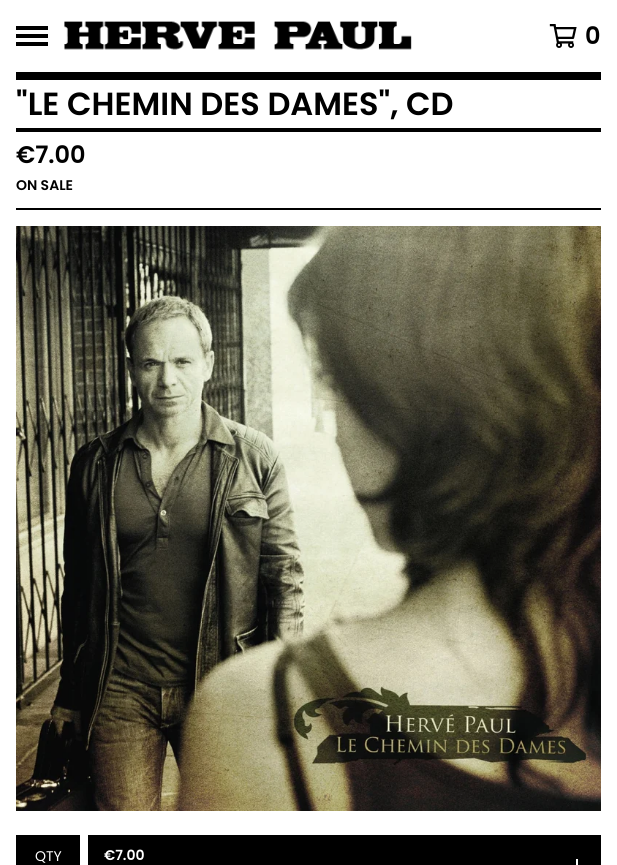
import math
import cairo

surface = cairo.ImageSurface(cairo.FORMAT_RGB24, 617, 865)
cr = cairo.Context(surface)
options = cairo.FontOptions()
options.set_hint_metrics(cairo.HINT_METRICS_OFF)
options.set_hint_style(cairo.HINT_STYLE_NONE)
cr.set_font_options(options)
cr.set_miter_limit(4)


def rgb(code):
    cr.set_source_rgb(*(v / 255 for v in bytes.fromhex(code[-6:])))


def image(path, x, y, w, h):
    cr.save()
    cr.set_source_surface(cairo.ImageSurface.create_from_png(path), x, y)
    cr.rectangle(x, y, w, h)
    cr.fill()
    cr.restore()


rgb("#ffffff")
cr.paint()
for x, y, w, h, color in [
    (16, 72, 585, 8, "#000000"),
    (16, 34, 32, 4, "#000000"),
    (16, 26, 32, 4, "#000000"),
    (16, 42, 32, 4, "#000000"),
]:
    rgb(color)
    cr.rectangle(x, y, w, h)
    cr.fill()
image("img/1.png", 64, 21, 348, 29)
image("img/2.png", 549, 24, 28, 24)
cr.rectangle(16, 128, 585, 4)
cr.fill()
cr.rectangle(16, 208, 585, 2)
cr.fill()
image("img/3.png", 16, 226, 585, 585)
for x, y, w, h, color in [
    (16, 835, 64, 30, "#000000"),
    (88, 835, 513, 30, "#000000"),
    (576, 859, 2, 6, "#ffffff"),
]:
    rgb(color)
    cr.rectangle(x, y, w, h)
    cr.fill()
cr.select_font_face("Poppins SemiBold")
cr.set_font_size(24)
rgb("#000000")
cr.move_to(585, 44)
cr.show_text("0")
cr.set_font_size(32)
cr.move_to(16, 115)
cr.show_text("\"LE CHEMIN DES DAMES\", CD")
cr.set_font_size(24)
cr.move_to(16, 163)
cr.show_text("€7.00")
cr.set_font_size(14)
cr.move_to(16, 190)
cr.show_text("ON SALE")
cr.select_font_face("Poppins")
rgb("#ffffff")
cr.move_to(35, 861)
cr.show_text("QTY")
cr.select_font_face("Poppins SemiBold")
cr.move_to(104, 860)
cr.show_text("€7.00")
surface.write_to_png("page.png")
